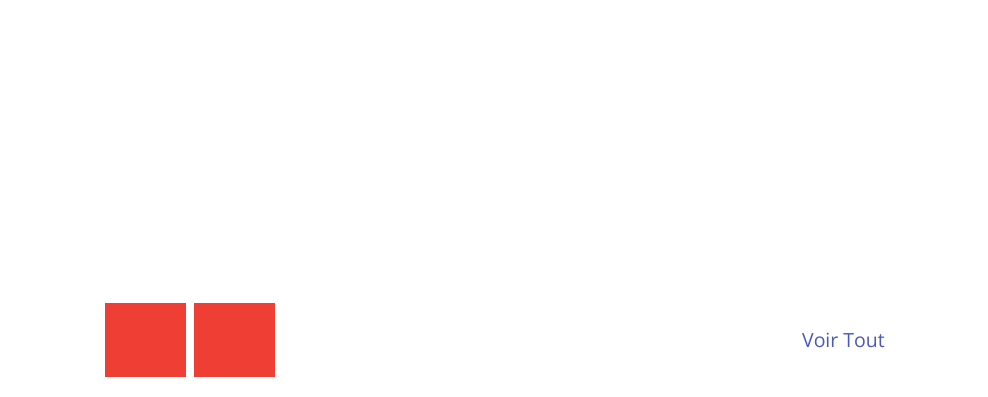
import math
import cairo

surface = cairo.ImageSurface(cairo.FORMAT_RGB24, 988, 397)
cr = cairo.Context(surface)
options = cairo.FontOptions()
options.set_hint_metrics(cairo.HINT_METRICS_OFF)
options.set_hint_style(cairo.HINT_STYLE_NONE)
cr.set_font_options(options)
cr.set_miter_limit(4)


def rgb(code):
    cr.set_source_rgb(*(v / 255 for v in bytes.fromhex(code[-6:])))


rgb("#ffffff")
cr.paint()
rgb("#ef3e33")
cr.rectangle(105, 303, 81, 74)
cr.fill()
cr.rectangle(194, 303, 81, 74)
cr.fill()
cr.select_font_face("Open Sans")
cr.set_font_size(19.5)
rgb("#4a5ab8")
cr.move_to(802, 347)
cr.show_text("Voir Tout")
surface.write_to_png("page.png")
